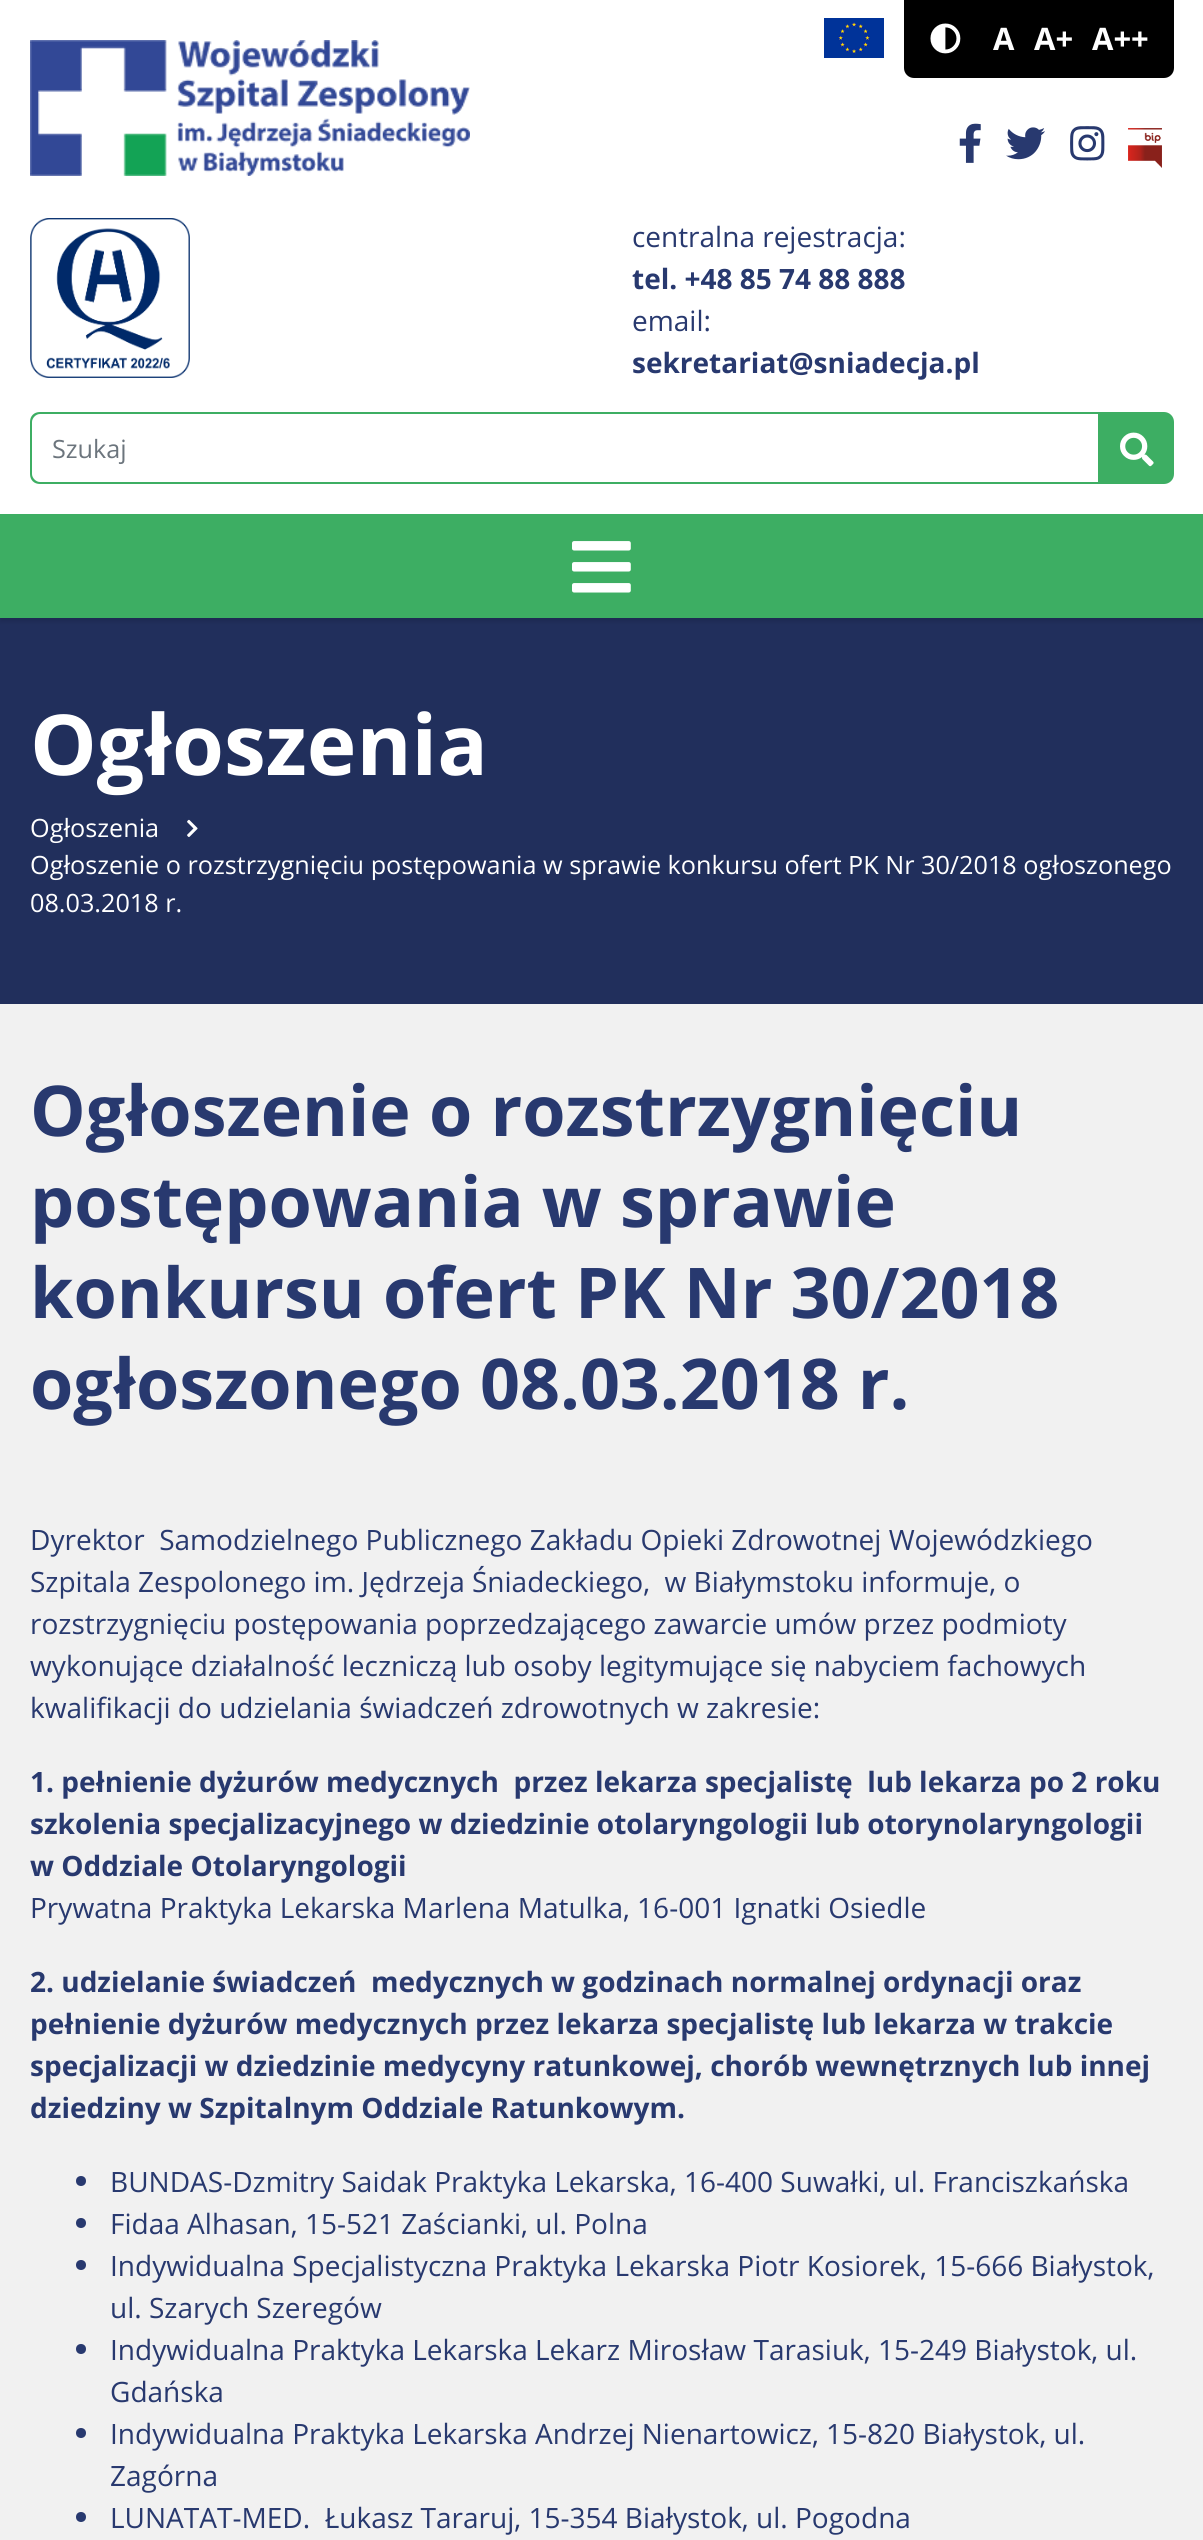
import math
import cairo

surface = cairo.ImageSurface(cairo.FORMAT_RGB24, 1203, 2540)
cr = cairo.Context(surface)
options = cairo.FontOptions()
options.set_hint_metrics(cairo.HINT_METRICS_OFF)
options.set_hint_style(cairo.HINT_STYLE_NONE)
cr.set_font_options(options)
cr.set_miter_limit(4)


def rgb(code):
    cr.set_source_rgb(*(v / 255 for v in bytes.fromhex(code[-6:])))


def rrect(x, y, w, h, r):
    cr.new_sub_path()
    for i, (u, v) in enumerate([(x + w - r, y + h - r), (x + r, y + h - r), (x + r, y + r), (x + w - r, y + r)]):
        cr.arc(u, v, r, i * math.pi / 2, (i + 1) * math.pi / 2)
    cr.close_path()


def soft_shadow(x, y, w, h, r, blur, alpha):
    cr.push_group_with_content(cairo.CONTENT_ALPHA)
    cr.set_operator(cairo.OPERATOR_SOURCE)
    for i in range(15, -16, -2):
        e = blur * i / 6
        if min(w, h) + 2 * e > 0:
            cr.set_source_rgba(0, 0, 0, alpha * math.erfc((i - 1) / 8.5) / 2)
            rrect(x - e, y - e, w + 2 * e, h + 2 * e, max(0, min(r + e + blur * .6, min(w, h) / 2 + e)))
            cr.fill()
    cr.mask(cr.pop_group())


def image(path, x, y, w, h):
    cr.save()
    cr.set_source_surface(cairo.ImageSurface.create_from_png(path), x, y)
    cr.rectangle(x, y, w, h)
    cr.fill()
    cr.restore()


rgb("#f1f1f1")
cr.paint()
rgb("#ffffff")
cr.rectangle(0, 0, 1203, 514)
cr.fill()
image("img/1.png", 30, 40, 440, 136)
image("img/2.png", 824, 18, 60, 40)
rgb("#000000")
cr.new_path()
cr.move_to(904, 0)
cr.line_to(1174, 0)
cr.line_to(1174, 68)
cr.curve_to(1174, 73.5, 1169.5, 78, 1164, 78)
cr.line_to(914, 78)
cr.curve_to(908.5, 78, 904, 73.5, 904, 68)
cr.close_path()
cr.fill()
image("img/3.png", 930, 23, 31, 31)
image("img/4.png", 959, 123, 22, 40)
image("img/5.png", 1006, 127, 39, 33)
image("img/6.png", 1070, 126, 35, 35)
image("img/7.png", 1128, 128, 34, 40)
image("img/8.png", 30, 218, 160, 160)
rgb("#3dae63")
cr.set_fill_rule(cairo.FILL_RULE_EVEN_ODD)
cr.new_path()
cr.move_to(40, 412)
cr.line_to(1098, 412)
cr.line_to(1098, 484)
cr.line_to(40, 484)
cr.curve_to(34, 484, 30, 480, 30, 474)
cr.line_to(30, 422)
cr.curve_to(30, 416, 34, 412, 40, 412)
cr.close_path()
cr.move_to(40, 414)
cr.line_to(1098, 414)
cr.line_to(1098, 482)
cr.line_to(40, 482)
cr.curve_to(36, 482, 32, 478, 32, 474)
cr.line_to(32, 422)
cr.curve_to(32, 418, 36, 414, 40, 414)
cr.close_path()
cr.fill()
cr.new_path()
cr.move_to(1099, 413)
cr.line_to(1164, 413)
cr.curve_to(1169, 413, 1173, 417, 1173, 422)
cr.line_to(1173, 474)
cr.curve_to(1173, 479, 1169, 483, 1164, 483)
cr.line_to(1099, 483)
cr.close_path()
cr.fill_preserve()
cr.stroke()
image("img/9.png", 1120, 432, 34, 35)
rgb("#212f5c")
cr.rectangle(0, 618, 1203, 386)
cr.fill()
rgb("#000000")
soft_shadow(0, 518, 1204, 104, 0, 2, 0.1)
rgb("#3dae63")
cr.rectangle(0, 514, 1203, 104)
cr.fill()
image("img/10.png", 572, 541, 59, 52)
image("img/11.png", 187, 819, 11, 18)
rgb("#28396f")
cr.arc(81, 2181, 5, 0, 2 * math.pi)
cr.fill()
cr.arc(81, 2223, 5, 0, 2 * math.pi)
cr.fill()
cr.arc(81, 2265, 5, 0, 2 * math.pi)
cr.fill()
cr.arc(81, 2349, 5, 0, 2 * math.pi)
cr.fill()
cr.arc(81, 2433, 5, 0, 2 * math.pi)
cr.fill()
cr.arc(81, 2517, 5, 0, 2 * math.pi)
cr.fill()
cr.select_font_face("Open Sans", cairo.FONT_SLANT_NORMAL, cairo.FONT_WEIGHT_BOLD)
cr.set_font_size(31)
rgb("#ffffff")
for x, y, s in [
    (993, 50, "A"),
    (1034, 50, "A+"),
    (1092, 50, "A++"),
]:
    cr.move_to(x, y)
    cr.show_text(s)
cr.select_font_face("Open Sans")
cr.set_font_size(28)
rgb("#28396f")
cr.move_to(632, 247)
cr.show_text("centralna rejestracja:")
cr.select_font_face("Open Sans", cairo.FONT_SLANT_NORMAL, cairo.FONT_WEIGHT_BOLD)
cr.move_to(632, 289)
cr.show_text("tel. +48 85 74 88 888")
cr.select_font_face("Open Sans")
cr.move_to(632, 331)
cr.show_text("email:")
cr.select_font_face("Open Sans", cairo.FONT_SLANT_NORMAL, cairo.FONT_WEIGHT_BOLD)
cr.move_to(632, 373)
cr.show_text("sekretariat@sniadecja.pl")
cr.select_font_face("Open Sans")
cr.set_font_size(25.2)
rgb("#6c757d")
cr.move_to(52, 458)
cr.show_text("Szukaj")
cr.select_font_face("Open Sans", cairo.FONT_SLANT_NORMAL, cairo.FONT_WEIGHT_BOLD)
cr.set_font_size(84)
rgb("#ffffff")
cr.move_to(30, 775)
cr.show_text("Ogłoszenia")
cr.select_font_face("Open Sans")
cr.set_font_size(25.2)
for x, y, s in [
    (30, 837, "Ogłoszenia"),
    (30, 874, "Ogłoszenie o rozstrzygnięciu postępowania w sprawie konkursu ofert"),
    (848, 874, "PK Nr 30/2018 ogłoszonego"),
    (30, 912, "08.03.2018 r."),
]:
    cr.move_to(x, y)
    cr.show_text(s)
cr.select_font_face("Open Sans", cairo.FONT_SLANT_NORMAL, cairo.FONT_WEIGHT_BOLD)
cr.set_font_size(70)
rgb("#28396f")
for x, y, s in [
    (30, 1136, "Ogłoszenie o rozstrzygnięciu"),
    (30, 1227, "postępowania w sprawie"),
    (30, 1318, "konkursu ofert PK Nr 30/2018"),
    (30, 1409, "ogłoszonego 08.03.2018 r."),
]:
    cr.move_to(x, y)
    cr.show_text(s)
cr.select_font_face("Open Sans")
cr.set_font_size(28)
for x, y, s in [
    (30, 1550, "Dyrektor  Samodzielnego Publicznego Zakładu Opieki Zdrowotnej Wojewódzkiego"),
    (30, 1592, "Szpitala Zespolonego im. Jędrzeja Śniadeckiego,  w Białymstoku informuje, o"),
    (30, 1634, "rozstrzygnięciu postępowania poprzedzającego zawarcie umów przez podmioty"),
    (30, 1676, "wykonujące działalność leczniczą lub osoby legitymujące się nabyciem fachowych"),
    (30, 1718, "kwalifikacji do udzielania świadczeń zdrowotnych w zakresie:"),
]:
    cr.move_to(x, y)
    cr.show_text(s)
cr.select_font_face("Open Sans", cairo.FONT_SLANT_NORMAL, cairo.FONT_WEIGHT_BOLD)
for x, y, s in [
    (30, 1792, "1. pełnienie dyżurów medycznych  przez lekarza specjalistę  lub lekarza po 2 roku"),
    (30, 1834, "szkolenia specjalizacyjnego w dziedzinie otolaryngologii lub otorynolaryngologii"),
    (30, 1876, "w Oddziale Otolaryngologii"),
]:
    cr.move_to(x, y)
    cr.show_text(s)
cr.select_font_face("Open Sans")
cr.move_to(30, 1918)
cr.show_text("Prywatna Praktyka Lekarska Marlena Matulka, 16-001 Ignatki Osiedle")
cr.select_font_face("Open Sans", cairo.FONT_SLANT_NORMAL, cairo.FONT_WEIGHT_BOLD)
for x, y, s in [
    (30, 1992, "2. udzielanie świadczeń  medycznych w godzinach normalnej ordynacji oraz"),
    (30, 2034, "pełnienie dyżurów medycznych przez lekarza specjalistę lub lekarza w trakcie"),
    (30, 2076, "specjalizacji w dziedzinie medycyny ratunkowej, chorób wewnętrznych lub innej"),
    (30, 2118, "dziedziny w Szpitalnym Oddziale Ratunkowym."),
]:
    cr.move_to(x, y)
    cr.show_text(s)
cr.select_font_face("Open Sans")
for x, y, s in [
    (110, 2192, "BUNDAS-Dzmitry Saidak Praktyka Lekarska, 16-400 Suwałki, ul. Franciszkańska"),
    (110, 2234, "Fidaa Alhasan, 15-521 Zaścianki, ul. Polna"),
    (110, 2276, "Indywidualna Specjalistyczna Praktyka Lekarska Piotr Kosiorek, 15-666 Białystok,"),
    (110, 2318, "ul. Szarych Szeregów"),
    (110, 2360, "Indywidualna Praktyka Lekarska Lekarz Mirosław Tarasiuk, 15-249 Białystok, ul."),
    (110, 2402, "Gdańska"),
    (110, 2444, "Indywidualna Praktyka Lekarska Andrzej Nienartowicz, 15-820 Białystok, ul."),
    (110, 2486, "Zagórna"),
    (110, 2528, "LUNATAT-MED.  Łukasz Tararuj, 15-354 Białystok, ul. Pogodna"),
]:
    cr.move_to(x, y)
    cr.show_text(s)
surface.write_to_png("page.png")
